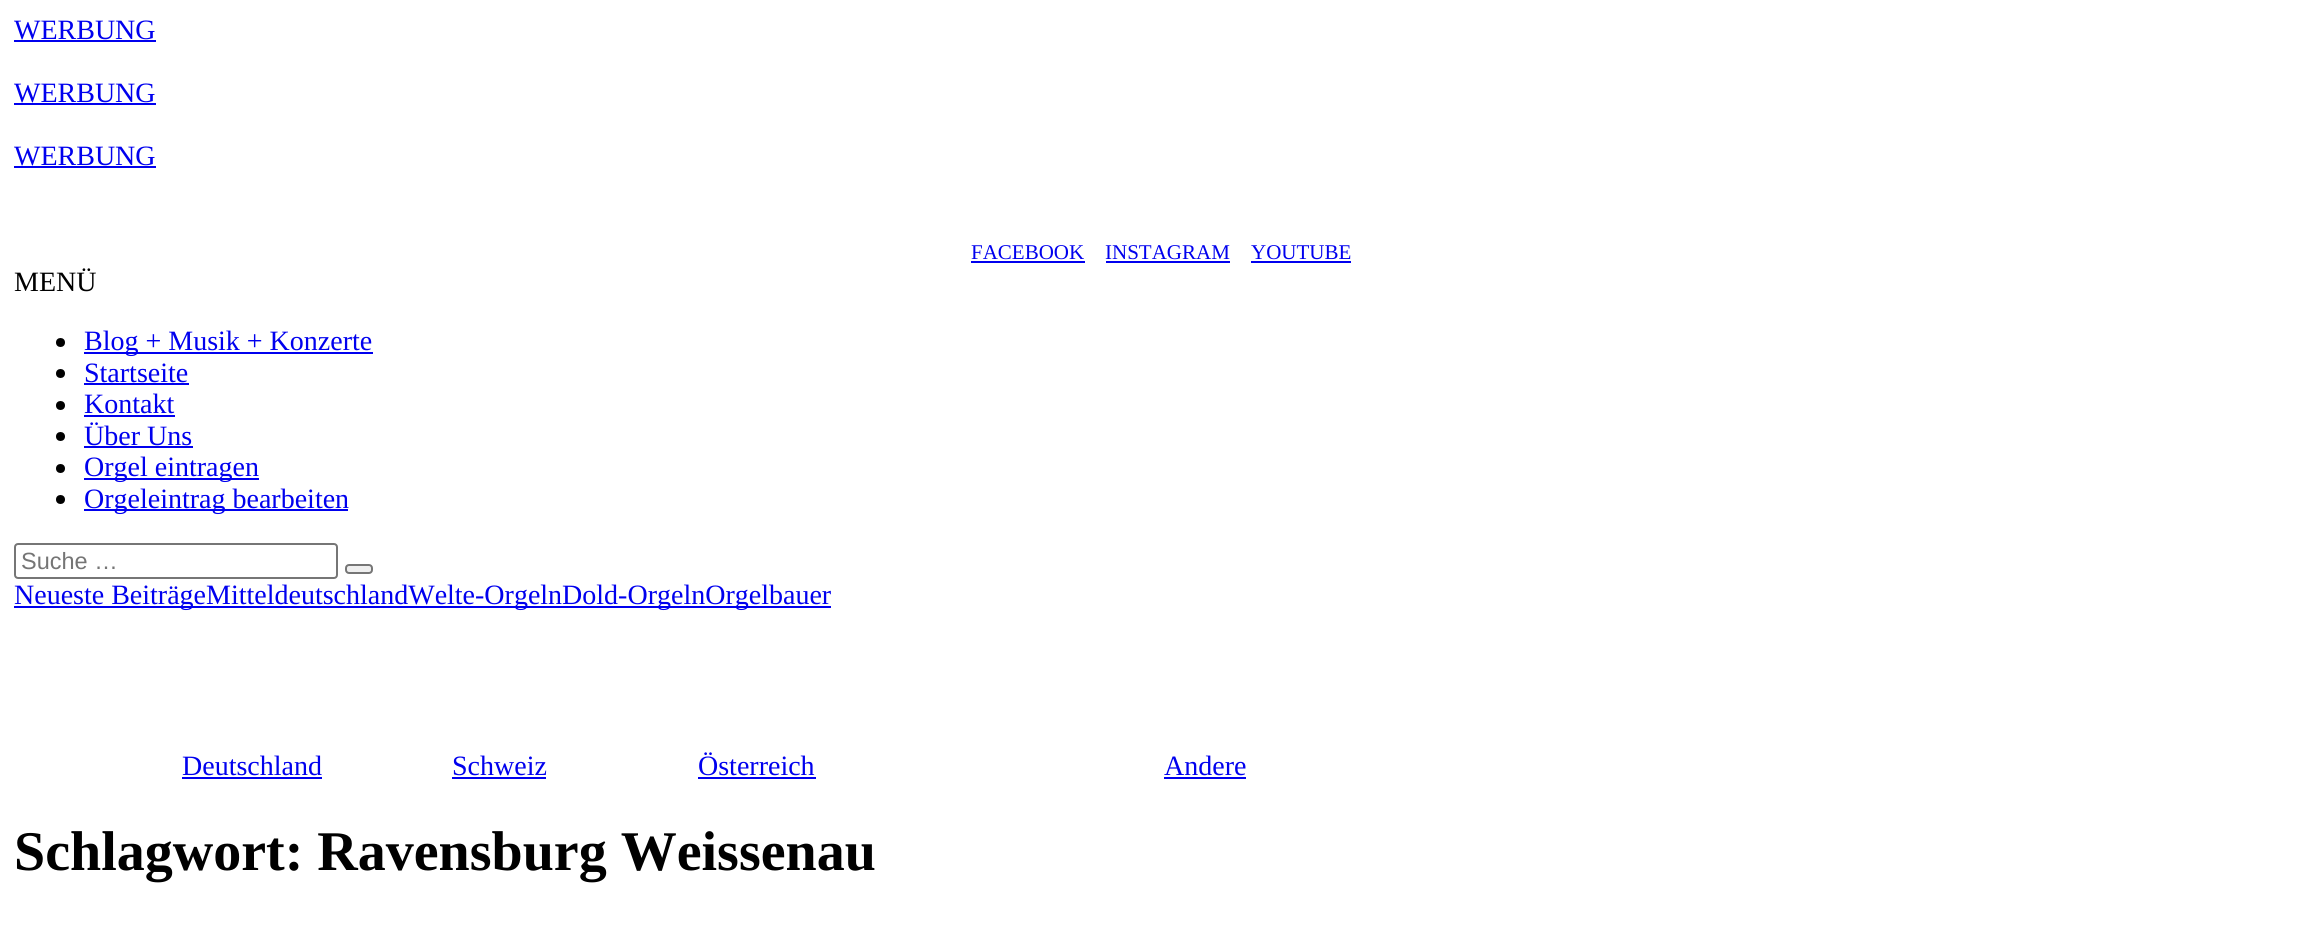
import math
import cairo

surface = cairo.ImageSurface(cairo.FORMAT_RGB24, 2321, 946)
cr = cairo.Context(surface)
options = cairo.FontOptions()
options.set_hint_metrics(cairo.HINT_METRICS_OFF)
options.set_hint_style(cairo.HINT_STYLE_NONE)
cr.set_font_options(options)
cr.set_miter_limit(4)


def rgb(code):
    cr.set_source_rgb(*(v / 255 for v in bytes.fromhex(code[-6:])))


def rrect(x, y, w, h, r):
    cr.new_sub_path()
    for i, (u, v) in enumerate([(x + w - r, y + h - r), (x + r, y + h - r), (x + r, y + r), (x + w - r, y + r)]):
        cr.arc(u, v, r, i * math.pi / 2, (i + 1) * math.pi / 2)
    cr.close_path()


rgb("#ffffff")
cr.paint()
for x, y, w, h, color in [
    (14, 40, 142, 2, "#0000ee"),
    (14, 103, 142, 2, "#0000ee"),
    (14, 166, 142, 2, "#0000ee"),
    (971, 261, 114, 2, "#0000ee"),
    (1106, 261, 124, 2, "#0000ee"),
    (1251, 261, 100, 2, "#0000ee"),
]:
    rgb(color)
    cr.rectangle(x, y, w, h)
    cr.fill()
rgb("#000000")
cr.arc(60.5, 342.5, 4.5, 0, 2 * math.pi)
cr.fill()
rgb("#0000ee")
cr.rectangle(84, 352, 289, 2)
cr.fill()
rgb("#000000")
cr.arc(60.5, 373.5, 4.5, 0, 2 * math.pi)
cr.fill()
rgb("#0000ee")
cr.rectangle(84, 383, 105, 2)
cr.fill()
rgb("#000000")
cr.arc(60.5, 405.5, 4.5, 0, 2 * math.pi)
cr.fill()
rgb("#0000ee")
cr.rectangle(84, 415, 91, 2)
cr.fill()
rgb("#000000")
cr.arc(60.5, 436.5, 4.5, 0, 2 * math.pi)
cr.fill()
rgb("#0000ee")
cr.rectangle(84, 446, 109, 2)
cr.fill()
rgb("#000000")
cr.arc(60.5, 468.5, 4.5, 0, 2 * math.pi)
cr.fill()
rgb("#0000ee")
cr.rectangle(84, 478, 175, 2)
cr.fill()
rgb("#000000")
cr.arc(60.5, 499.5, 4.5, 0, 2 * math.pi)
cr.fill()
rgb("#0000ee")
cr.rectangle(84, 509, 264, 2)
cr.fill()
rrect(15, 544, 322, 34, 3)
rgb("#767676")
cr.stroke()
rgb("#efefef")
rrect(346, 565, 26, 8, 3)
cr.fill_preserve()
rgb("#767676")
cr.stroke()
for x, y, w, h, color in [
    (14, 606, 817, 2, "#0000ee"),
    (182, 777, 140, 2, "#0000ee"),
    (452, 777, 94, 2, "#0000ee"),
    (698, 777, 118, 2, "#0000ee"),
    (1164, 777, 82, 2, "#0000ee"),
]:
    rgb(color)
    cr.rectangle(x, y, w, h)
    cr.fill()
cr.select_font_face("Liberation Serif")
cr.set_font_size(28)
for x, y, s in [
    (14, 39, "WERBUNG"),
    (14, 102, "WERBUNG"),
    (14, 165, "WERBUNG"),
]:
    cr.move_to(x, y)
    cr.show_text(s)
cr.set_font_size(21)
for x, y, s in [
    (971, 259, "FACEBOOK"),
    (1105, 259, "INSTAGRAM"),
    (1251, 259, "YOUTUBE"),
]:
    cr.move_to(x, y)
    cr.show_text(s)
cr.set_font_size(28)
rgb("#000000")
cr.move_to(14, 291)
cr.show_text("MENÜ")
rgb("#0000ee")
for x, y, s in [
    (84, 350, "Blog + Musik + Konzerte"),
    (84, 382, "Startseite"),
    (84, 413, "Kontakt"),
    (84, 445, "Über Uns"),
    (84, 476, "Orgel eintragen"),
    (84, 508, "Orgeleintrag bearbeiten"),
]:
    cr.move_to(x, y)
    cr.show_text(s)
cr.select_font_face("Liberation Sans")
cr.set_font_size(23.5)
rgb("#757575")
cr.move_to(21, 569)
cr.show_text("Suche …")
cr.select_font_face("Liberation Serif")
cr.set_font_size(28)
rgb("#0000ee")
for x, y, s in [
    (14, 604, "Neueste BeiträgeMitteldeutschlandWelte-OrgelnDold-OrgelnOrgelbauer"),
    (182, 775, "Deutschland"),
    (452, 775, "Schweiz"),
    (698, 775, "Österreich"),
    (1164, 775, "Andere"),
]:
    cr.move_to(x, y)
    cr.show_text(s)
cr.select_font_face("Liberation Serif", cairo.FONT_SLANT_NORMAL, cairo.FONT_WEIGHT_BOLD)
cr.set_font_size(56)
rgb("#000000")
cr.move_to(14, 870)
cr.show_text("Schlagwort: Ravensburg Weissenau")
surface.write_to_png("page.png")
